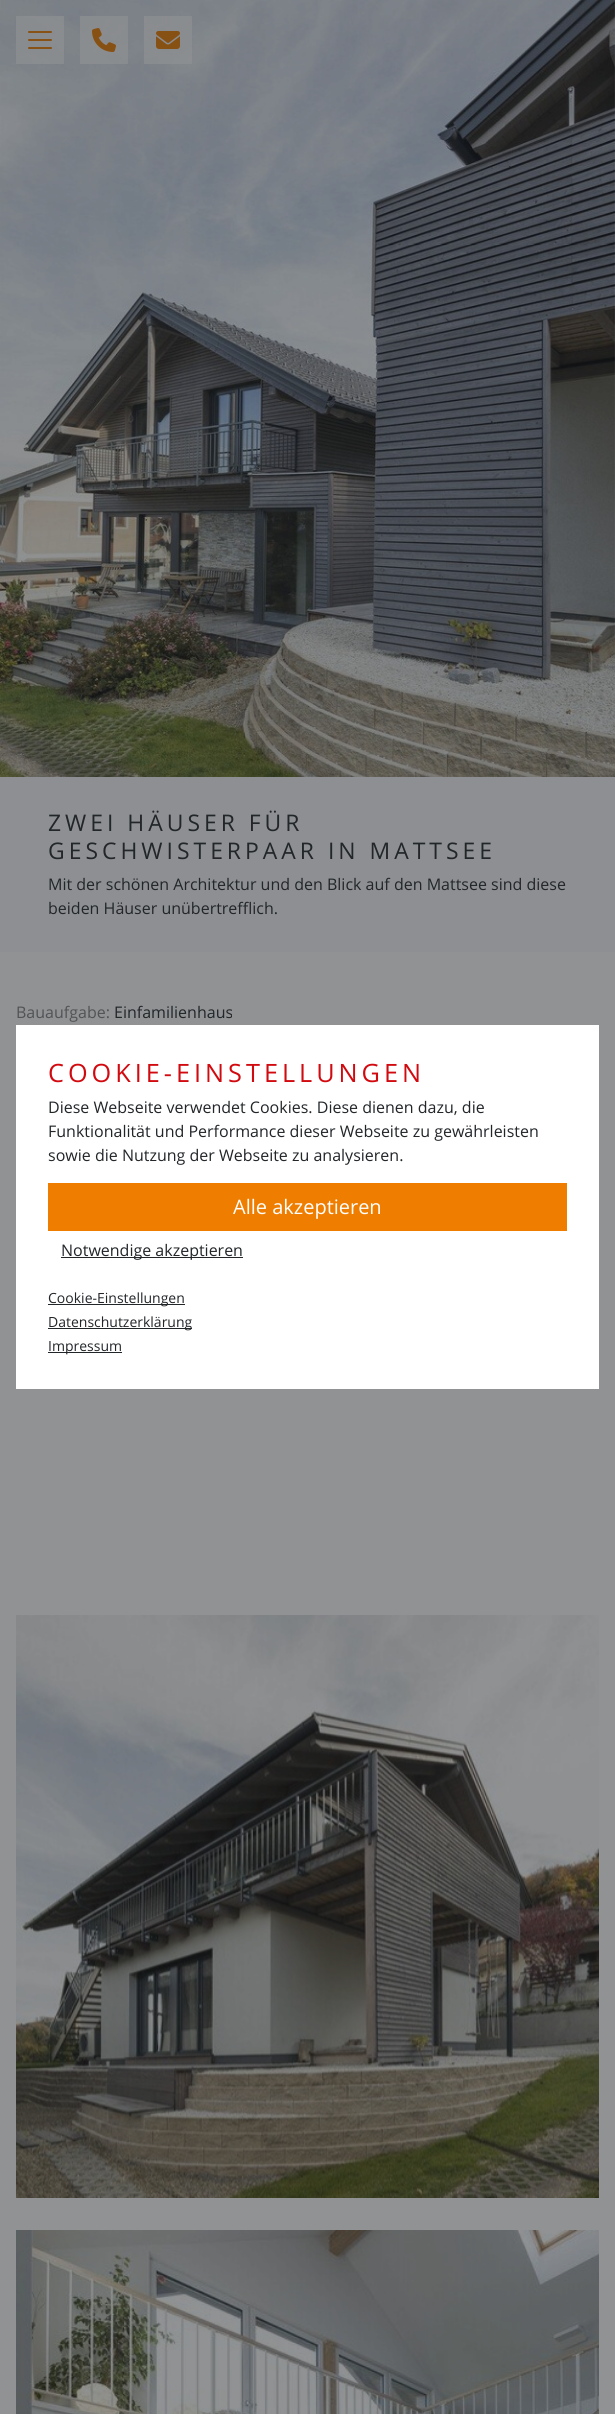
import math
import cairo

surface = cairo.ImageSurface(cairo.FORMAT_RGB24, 615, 2414)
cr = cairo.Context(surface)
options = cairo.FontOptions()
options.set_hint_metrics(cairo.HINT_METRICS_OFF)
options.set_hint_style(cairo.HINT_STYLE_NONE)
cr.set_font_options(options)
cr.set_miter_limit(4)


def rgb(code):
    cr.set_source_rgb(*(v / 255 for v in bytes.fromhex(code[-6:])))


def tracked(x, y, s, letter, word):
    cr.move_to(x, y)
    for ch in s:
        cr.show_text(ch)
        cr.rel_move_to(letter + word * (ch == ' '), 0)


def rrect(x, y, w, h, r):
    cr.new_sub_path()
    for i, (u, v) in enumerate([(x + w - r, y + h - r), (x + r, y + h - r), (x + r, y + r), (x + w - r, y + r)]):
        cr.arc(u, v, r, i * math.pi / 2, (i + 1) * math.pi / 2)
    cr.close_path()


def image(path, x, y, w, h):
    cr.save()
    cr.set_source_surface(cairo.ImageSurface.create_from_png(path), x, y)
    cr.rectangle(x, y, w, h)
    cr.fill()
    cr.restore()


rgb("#909294")
cr.paint()
rgb("#8d8f92")
cr.rectangle(0, 0, 615, 952)
cr.fill()
image("img/3.png", 0, 0, 615, 777)
cr.set_source_rgba(0.565, 0.573, 0.58, 0.66)
cr.rectangle(16, 16, 48, 48)
cr.fill()
rgb("#885115")
rrect(28, 31, 24, 2, 1)
cr.fill()
rrect(28, 39, 24, 2, 1)
cr.fill()
rrect(28, 47, 24, 2, 1)
cr.fill()
cr.set_source_rgba(0.565, 0.573, 0.58, 0.66)
cr.rectangle(80, 16, 48, 48)
cr.fill()
image("img/1.png", 92, 28, 24, 24)
cr.rectangle(144, 16, 48, 48)
cr.fill()
image("img/2.png", 156, 31, 24, 18)
image("img/4.png", 16, 1615, 583, 583)
image("img/5.png", 16, 2230, 583, 184)
for x, y, w, h, color in [
    (16, 1025, 583, 364, "#ffffff"),
    (48, 1183, 519, 48, "#ef7d00"),
    (61, 1257, 182, 1, "#232629"),
    (48, 1304, 137, 1, "#232629"),
    (48, 1328, 144, 1, "#232629"),
    (48, 1352, 74, 1, "#232629"),
]:
    rgb(color)
    cr.rectangle(x, y, w, h)
    cr.fill()
cr.select_font_face("Open Sans")
cr.set_font_size(22.9)
rgb("#222629")
tracked(48, 831, "ZWEI HÄUSER FÜR", 4, 0)
tracked(48, 859, "GESCHWISTERPAAR IN MATTSEE", 4, 0)
cr.set_font_size(16)
cr.move_to(48, 890)
cr.show_text("Mit der schönen Architektur und den Blick auf den Mattsee sind diese")
cr.move_to(48, 914)
cr.show_text("beiden Häuser unübertrefflich.")
rgb("#515355")
cr.move_to(16, 1018)
cr.show_text("Bauaufgabe:")
rgb("#222629")
cr.move_to(114, 1018)
cr.show_text("Einfamilienhaus")
cr.set_font_size(25.25)
rgb("#d10a10")
tracked(48, 1082, "COOKIE-EINSTELLUNGEN", 4, 0)
cr.set_font_size(16)
rgb("#222629")
for x, y, s in [
    (48, 1113, "Diese Webseite verwendet Cookies. Diese dienen dazu, die"),
    (48, 1137, "Funktionalität und Performance dieser Webseite zu gewährleisten"),
    (48, 1161, "sowie die Nutzung der Webseite zu analysieren."),
]:
    cr.move_to(x, y)
    cr.show_text(s)
cr.set_font_size(20)
rgb("#ffffff")
cr.move_to(233, 1214)
cr.show_text("Alle akzeptieren")
cr.set_font_size(16)
rgb("#222629")
cr.move_to(61, 1256)
cr.show_text("Notwendige akzeptieren")
cr.set_font_size(14)
for x, y, s in [
    (48, 1303, "Cookie-Einstellungen"),
    (48, 1327, "Datenschutzerklärung"),
    (48, 1351, "Impressum"),
]:
    cr.move_to(x, y)
    cr.show_text(s)
surface.write_to_png("page.png")
